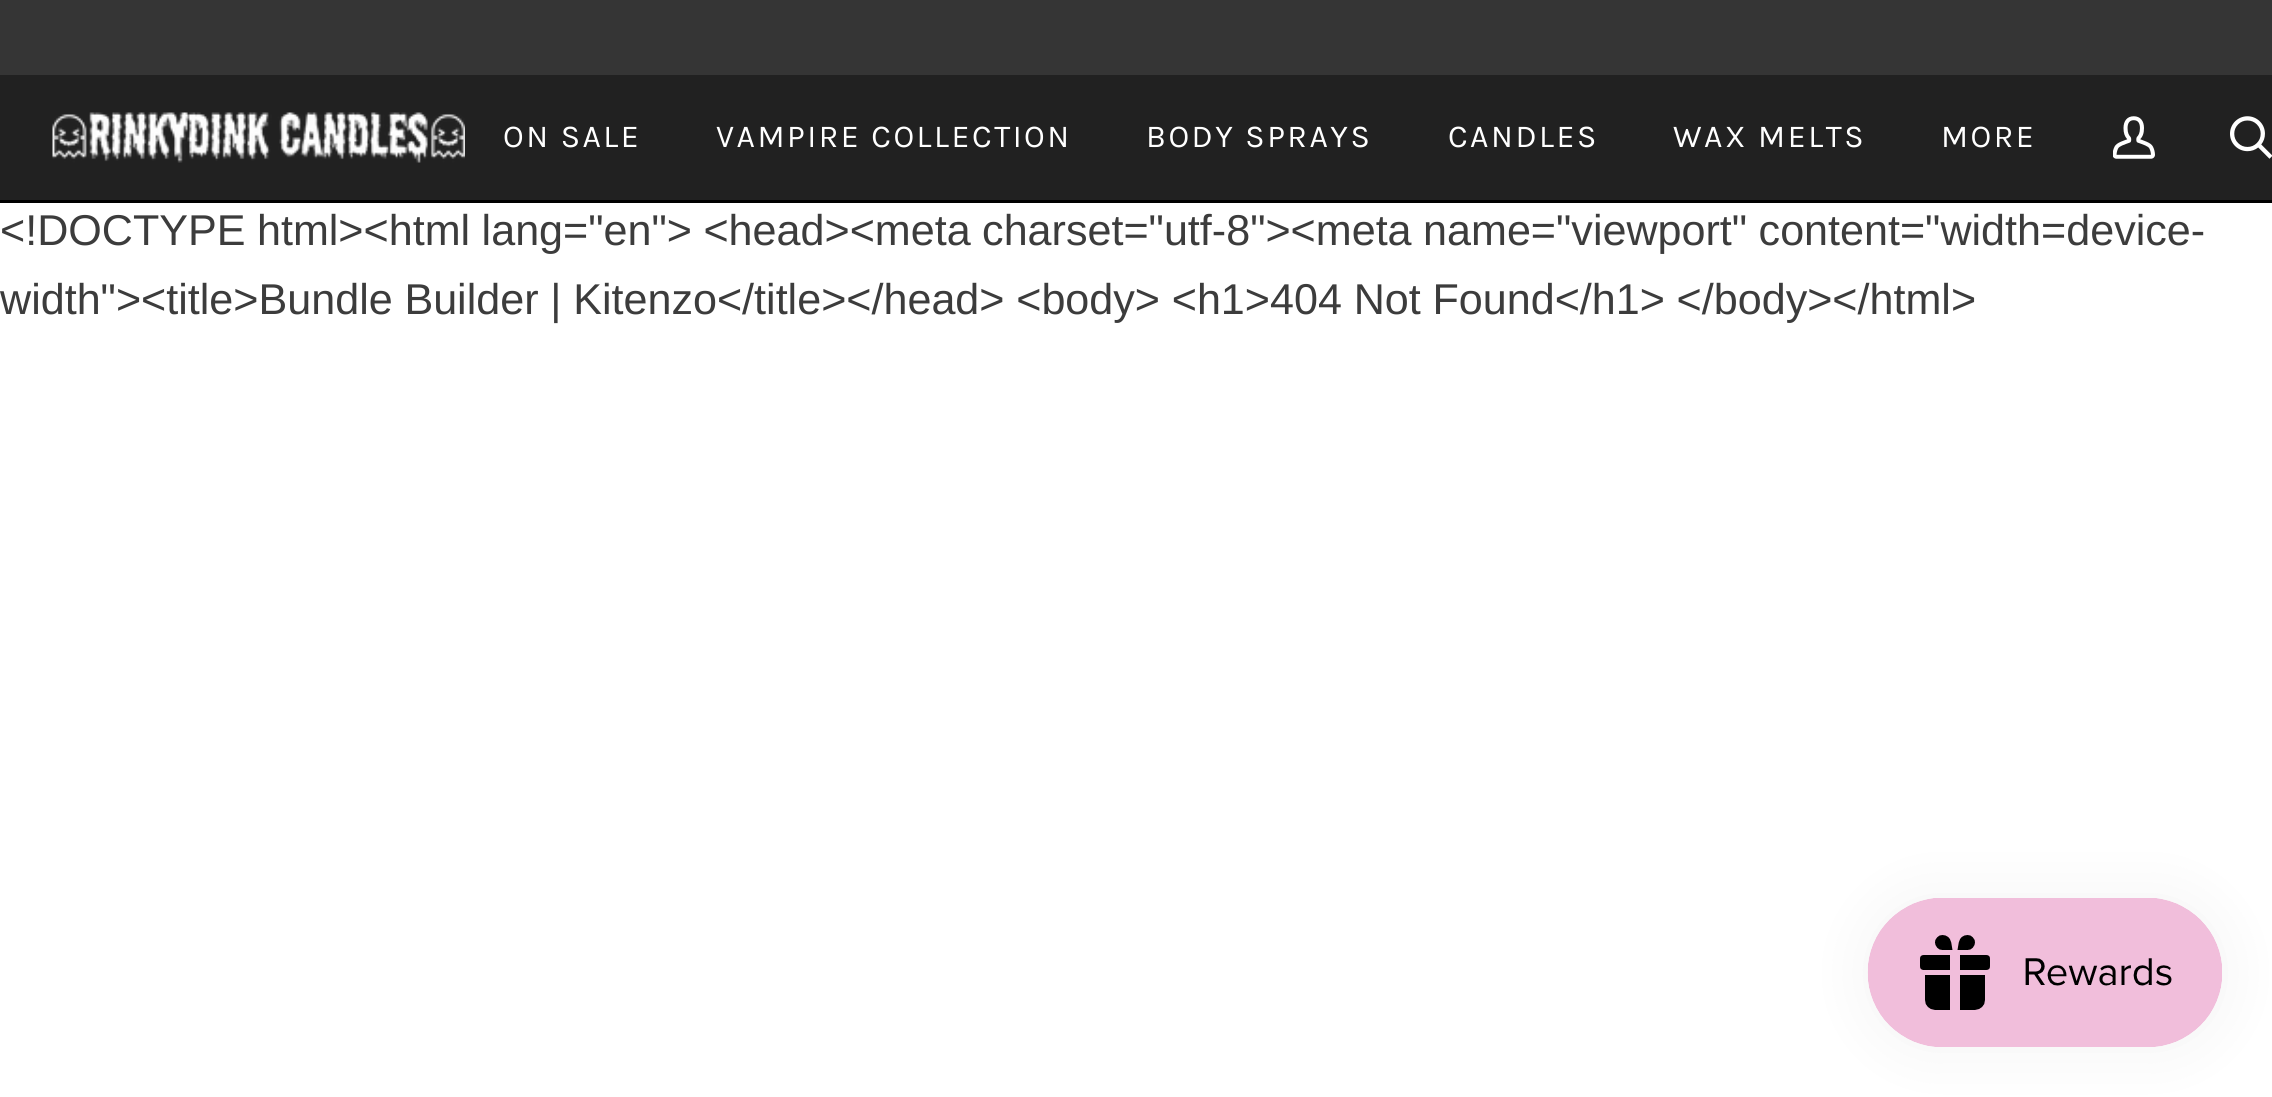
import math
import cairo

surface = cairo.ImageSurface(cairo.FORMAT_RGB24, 2272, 1097)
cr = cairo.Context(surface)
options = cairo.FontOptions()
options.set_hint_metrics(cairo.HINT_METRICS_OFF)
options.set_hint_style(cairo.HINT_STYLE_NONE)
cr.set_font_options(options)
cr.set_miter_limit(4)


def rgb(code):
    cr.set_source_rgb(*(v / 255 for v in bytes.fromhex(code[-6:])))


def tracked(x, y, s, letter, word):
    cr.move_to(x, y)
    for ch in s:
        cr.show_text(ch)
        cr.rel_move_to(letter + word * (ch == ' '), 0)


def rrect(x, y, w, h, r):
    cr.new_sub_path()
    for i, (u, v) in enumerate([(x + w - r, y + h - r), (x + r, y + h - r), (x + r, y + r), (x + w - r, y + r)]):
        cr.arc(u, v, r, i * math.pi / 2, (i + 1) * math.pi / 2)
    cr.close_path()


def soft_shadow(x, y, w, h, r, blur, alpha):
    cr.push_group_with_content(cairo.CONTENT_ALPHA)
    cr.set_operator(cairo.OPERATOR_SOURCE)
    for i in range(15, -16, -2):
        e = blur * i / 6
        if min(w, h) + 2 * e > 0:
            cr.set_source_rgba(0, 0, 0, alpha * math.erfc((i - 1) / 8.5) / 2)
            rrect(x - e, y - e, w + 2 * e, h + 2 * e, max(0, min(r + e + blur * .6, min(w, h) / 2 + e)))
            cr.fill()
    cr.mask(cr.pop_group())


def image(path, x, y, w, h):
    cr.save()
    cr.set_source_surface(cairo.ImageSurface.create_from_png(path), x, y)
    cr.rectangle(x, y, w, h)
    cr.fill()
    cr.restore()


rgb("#ffffff")
cr.paint()
for x, y, w, h, color in [
    (0, 0, 2272, 75, "#353535"),
    (0, 75, 2272, 125, "#212121"),
    (0, 200, 2272, 3, "#000000"),
]:
    rgb(color)
    cr.rectangle(x, y, w, h)
    cr.fill()
image("img/1.png", 52, 112, 413, 51)
image("img/2.png", 2113, 116, 42, 43)
image("img/3.png", 2230, 116, 42, 43)
rgb("#000000")
soft_shadow(1868, 898, 355, 150, 75, 31, 0.05)
image("img/4.png", 1867, 898, 355, 149)
cr.select_font_face("Karla")
cr.set_font_size(32)
rgb("#ffffff")
for x, y, s in [
    (503, 147, "ON SALE"),
    (716, 147, "VAMPIRE COLLECTION"),
    (1146, 147, "BODY SPRAYS"),
    (1448, 147, "CANDLES"),
    (1673, 147, "WAX MELTS"),
    (1941, 147, "MORE"),
]:
    tracked(x, y, s, 2.5, 0)
cr.select_font_face("Arimo")
cr.set_font_size(43.1)
rgb("#3c3c3c")
tracked(0, 245, "<!DOCTYPE html><html lang=\"en\"> <head><meta charset=\"utf-8\"><meta name=\"viewport\" content=\"width=device-", 0, -0.5)
tracked(0, 314, "width\"><title>Bundle Builder | Kitenzo</title></head> <body> <h1>404 Not Found</h1> </body></html>", 0, -0.25)
surface.write_to_png("page.png")
